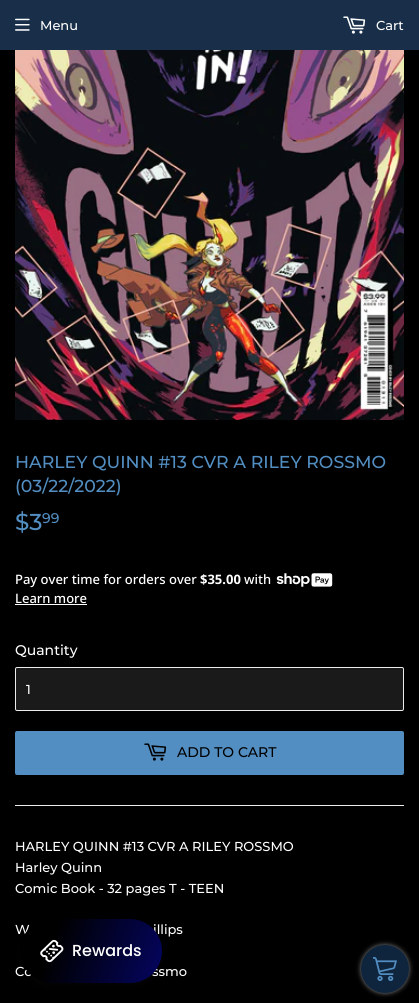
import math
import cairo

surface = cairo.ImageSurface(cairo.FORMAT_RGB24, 419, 1003)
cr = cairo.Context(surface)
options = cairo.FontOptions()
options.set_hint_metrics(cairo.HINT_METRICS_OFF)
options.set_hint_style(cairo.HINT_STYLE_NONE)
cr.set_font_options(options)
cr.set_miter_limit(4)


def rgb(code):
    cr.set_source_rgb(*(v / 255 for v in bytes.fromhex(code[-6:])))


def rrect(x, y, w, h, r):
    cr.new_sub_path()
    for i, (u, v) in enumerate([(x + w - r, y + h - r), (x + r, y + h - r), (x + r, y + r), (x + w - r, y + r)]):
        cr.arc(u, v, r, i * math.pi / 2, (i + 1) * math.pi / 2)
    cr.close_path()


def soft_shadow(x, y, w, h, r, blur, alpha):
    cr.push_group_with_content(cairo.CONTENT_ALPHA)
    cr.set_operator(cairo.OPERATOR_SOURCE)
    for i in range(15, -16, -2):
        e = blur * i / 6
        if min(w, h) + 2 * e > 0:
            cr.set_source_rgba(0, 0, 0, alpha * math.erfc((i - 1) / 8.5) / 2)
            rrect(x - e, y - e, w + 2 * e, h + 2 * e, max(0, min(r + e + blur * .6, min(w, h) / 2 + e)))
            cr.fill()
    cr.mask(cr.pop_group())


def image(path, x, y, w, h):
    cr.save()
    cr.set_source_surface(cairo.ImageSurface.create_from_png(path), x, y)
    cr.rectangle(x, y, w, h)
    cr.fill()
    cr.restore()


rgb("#000000")
cr.paint()
rgb("#182e49")
cr.rectangle(0, 0, 419, 50)
cr.fill()
image("img/1.png", 15, 18, 15, 13)
image("img/2.png", 343, 16, 23, 18)
image("img/3.png", 15, 50, 389, 370)
image("img/4.png", 276, 573, 57, 14)
rgb("#ffffff")
cr.rectangle(15, 604, 72, 1)
cr.fill()
rgb("#1a1a1a")
rrect(15.5, 667.5, 388, 43, 1.5)
cr.fill_preserve()
rgb("#ececec")
cr.set_line_width(1)
cr.stroke()
rgb("#528ec1")
rrect(15, 731, 389, 44, 2)
cr.fill()
image("img/5.png", 144, 743, 23, 18)
rgb("#ececec")
cr.rectangle(15, 805, 389, 1)
cr.fill()
rgb("#444444")
soft_shadow(22, 925, 138, 60, 30, 4, 0.08)
rgb("#808080")
soft_shadow(361, 945, 48, 48, 24, 2.5, 1)
rgb("#0f243d")
cr.arc(385, 969, 24, 0, 2 * math.pi)
cr.fill()
image("img/7.png", 373, 957, 24, 24)
cr.select_font_face("Montserrat Medium")
cr.set_font_size(13)
rgb("#ffffff")
cr.move_to(40, 30)
cr.show_text("Menu")
cr.move_to(376, 30)
cr.show_text("Cart")
cr.set_font_size(17.3)
rgb("#528ec1")
cr.move_to(15, 468)
cr.show_text("HARLEY QUINN #13 CVR A RILEY ROSSMO")
cr.move_to(15, 492)
cr.show_text("(03/22/2022)")
cr.set_font_size(23)
cr.move_to(15, 530)
cr.show_text("$3")
cr.set_font_size(14)
cr.move_to(42, 523)
cr.show_text("99")
cr.select_font_face("Noto Sans Medium")
cr.set_font_size(13)
rgb("#ffffff")
cr.move_to(15, 584)
cr.show_text("Pay over time for orders over")
cr.select_font_face("Noto Sans", cairo.FONT_SLANT_NORMAL, cairo.FONT_WEIGHT_BOLD)
cr.move_to(200, 584)
cr.show_text("$35.00")
cr.select_font_face("Noto Sans Medium")
cr.move_to(244, 584)
cr.show_text("with")
cr.move_to(15, 603)
cr.show_text("Learn more")
cr.select_font_face("Montserrat Medium")
cr.set_font_size(14)
cr.move_to(15, 655)
cr.show_text("Quantity")
cr.set_font_size(13)
cr.move_to(26, 694)
cr.show_text("1")
cr.set_font_size(14)
rgb("#000000")
cr.move_to(177, 757)
cr.show_text("ADD TO CART")
cr.set_font_size(13)
rgb("#ffffff")
for x, y, s in [
    (15, 851, "HARLEY QUINN #13 CVR A RILEY ROSSMO"),
    (15, 872, "Harley Quinn"),
    (15, 893, "Comic Book - 32 pages T - TEEN"),
    (15, 934, "W"),
    (153, 934, "illips"),
    (15, 976, "Co"),
    (152, 976, "ssmo"),
]:
    cr.move_to(x, y)
    cr.show_text(s)
gradient = cairo.LinearGradient(18, 925, 223, 998)
gradient.add_color_stop_rgba(0.17, 0, 0, 0, 1)
gradient.add_color_stop_rgba(1, 0.027, 0.031, 0.58, 1)
cr.set_source(gradient)
rrect(20, 919, 142, 64, 32)
cr.fill()
image("img/6.png", 40, 939, 24, 24)
cr.select_font_face("Poppins Medium")
cr.set_font_size(16)
rgb("#ffffff")
cr.move_to(72, 956)
cr.show_text("Rewards")
surface.write_to_png("page.png")
